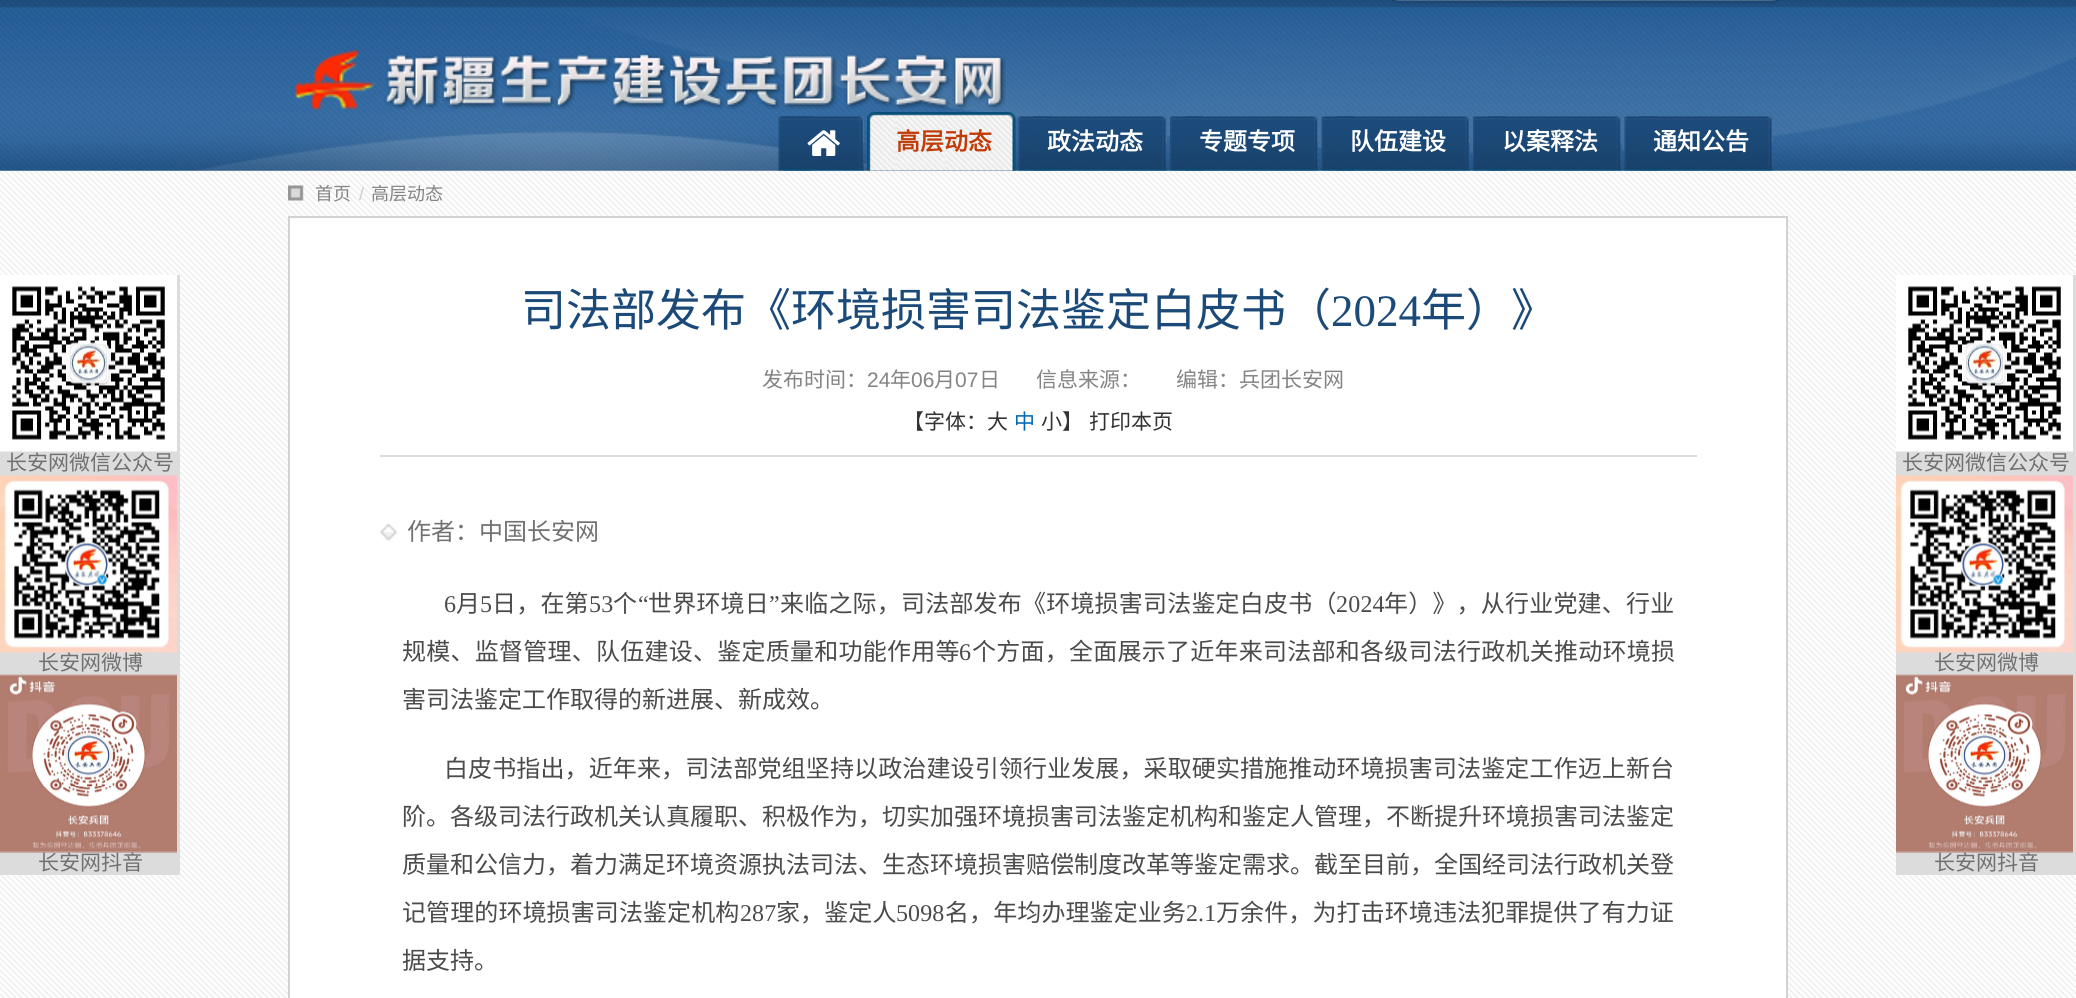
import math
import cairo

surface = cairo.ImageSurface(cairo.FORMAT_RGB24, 2076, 998)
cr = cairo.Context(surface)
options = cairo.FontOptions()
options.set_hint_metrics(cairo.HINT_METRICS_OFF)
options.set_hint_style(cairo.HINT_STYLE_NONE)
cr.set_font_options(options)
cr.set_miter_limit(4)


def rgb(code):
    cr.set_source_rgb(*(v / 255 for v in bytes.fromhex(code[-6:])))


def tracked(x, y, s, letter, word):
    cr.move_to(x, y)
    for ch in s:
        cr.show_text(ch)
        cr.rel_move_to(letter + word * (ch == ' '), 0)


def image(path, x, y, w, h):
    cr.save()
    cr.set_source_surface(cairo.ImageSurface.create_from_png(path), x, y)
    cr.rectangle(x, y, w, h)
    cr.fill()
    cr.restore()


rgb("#ffffff")
cr.paint()
image("img/1.png", 0, 170, 2076, 828)
image("img/2.png", 0, 0, 2076, 171)
image("img/3.png", 0, 170, 2076, 1)
image("img/4.png", 1392, 0, 388, 3)
image("img/5.png", 294, 49, 712, 62)
image("img/6.png", 778, 116, 34, 55)
image("img/7.png", 783, 116, 81, 55)
image("img/8.png", 807, 130, 33, 26)
image("img/9.png", 867, 112, 31, 59)
image("img/10.png", 895, 112, 121, 59)
image("img/11.png", 1018, 116, 34, 55)
image("img/12.png", 1033, 116, 134, 55)
image("img/13.png", 1170, 116, 33, 55)
image("img/14.png", 1185, 116, 134, 55)
image("img/15.png", 1321, 116, 34, 55)
image("img/16.png", 1336, 116, 134, 55)
image("img/17.png", 1473, 116, 33, 55)
image("img/18.png", 1488, 116, 134, 55)
image("img/19.png", 1624, 116, 34, 55)
image("img/20.png", 1639, 116, 134, 55)
image("img/21.png", 288, 185, 16, 16)
rgb("#ffffff")
cr.rectangle(289, 217, 1498, 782)
cr.fill_preserve()
rgb("#d2d2d2")
cr.stroke()
rgb("#dcdcdc")
cr.rectangle(380, 455, 1317, 2)
cr.fill()
image("img/22.png", 379, 523, 19, 18)
cr.rectangle(0, 275, 180, 600)
cr.fill()
image("img/23.png", 0, 275, 177, 177)
image("img/24.png", 0, 475, 177, 178)
image("img/25.png", 0, 674, 177, 179)
cr.rectangle(1896, 275, 180, 600)
cr.fill()
image("img/23.png", 1896, 275, 177, 177)
image("img/24.png", 1896, 475, 177, 178)
image("img/25.png", 1896, 674, 177, 179)
cr.select_font_face("Noto Sans CJK SC", cairo.FONT_SLANT_NORMAL, cairo.FONT_WEIGHT_BOLD)
cr.set_font_size(24)
rgb("#c13b07")
cr.move_to(896, 150)
cr.show_text("高层动态")
rgb("#ffffff")
for x, y, s in [
    (1047, 150, "政法动态"),
    (1199, 150, "专题专项"),
    (1350, 150, "队伍建设"),
    (1502, 150, "以案释法"),
    (1653, 150, "通知公告"),
]:
    cr.move_to(x, y)
    cr.show_text(s)
cr.select_font_face("Noto Sans CJK SC")
cr.set_font_size(18)
rgb("#848484")
cr.move_to(315, 200)
cr.show_text("首页")
cr.select_font_face("Liberation Sans")
rgb("#cccccc")
cr.move_to(359, 200)
cr.show_text("/")
cr.select_font_face("Noto Sans CJK SC")
rgb("#848484")
cr.move_to(371, 200)
cr.show_text("高层动态")
cr.set_font_size(45)
rgb("#1b4a79")
cr.move_to(521, 326)
cr.show_text("司法部发布《环境损害司法鉴定白皮书（")
cr.select_font_face("Liberation Serif")
cr.move_to(1331, 326)
cr.show_text("2024")
cr.select_font_face("Noto Sans CJK SC")
cr.move_to(1421, 326)
cr.show_text("年）》")
cr.set_font_size(21)
rgb("#848484")
cr.move_to(762, 387)
cr.show_text("发布时间：")
cr.select_font_face("Liberation Sans")
cr.move_to(867, 387)
cr.show_text("24")
cr.select_font_face("Noto Sans CJK SC")
cr.move_to(890, 387)
cr.show_text("年")
cr.select_font_face("Liberation Sans")
cr.move_to(911, 387)
cr.show_text("06")
cr.select_font_face("Noto Sans CJK SC")
cr.move_to(934, 387)
cr.show_text("月")
cr.select_font_face("Liberation Sans")
cr.move_to(955, 387)
cr.show_text("07")
cr.select_font_face("Noto Sans CJK SC")
for x, y, s in [
    (979, 387, "日"),
    (1036, 387, "信息来源："),
    (1176, 387, "编辑：兵团长安网"),
]:
    cr.move_to(x, y)
    cr.show_text(s)
rgb("#333333")
cr.move_to(903, 429)
cr.show_text("【字体：大")
rgb("#0068b7")
cr.move_to(1014, 429)
cr.show_text("中")
rgb("#333333")
cr.move_to(1041, 429)
cr.show_text("小】")
cr.move_to(1089, 429)
cr.show_text("打印本页")
cr.set_font_size(24)
rgb("#717171")
cr.move_to(407, 540)
cr.show_text("作者：中国长安网")
cr.select_font_face("Liberation Serif")
rgb("#4c4a4b")
tracked(444, 612, "6", 0.2, 0)
cr.select_font_face("Noto Sans CJK SC")
tracked(456, 612, "月", 0.2, 0)
cr.select_font_face("Liberation Serif")
tracked(480, 612, "5", 0.2, 0)
cr.select_font_face("Noto Sans CJK SC")
tracked(492, 612, "日，在第", 0.2, 0)
cr.select_font_face("Liberation Serif")
tracked(589, 612, "53", 0.2, 0)
cr.select_font_face("Noto Sans CJK SC")
tracked(613, 612, "个", 0.2, 0)
cr.select_font_face("Liberation Serif")
tracked(638, 612, "“", 0.2, 0)
cr.select_font_face("Noto Sans CJK SC")
tracked(648, 612, "世界环境日", 0.2, 0)
cr.select_font_face("Liberation Serif")
tracked(769, 612, "”", 0.2, 0)
cr.select_font_face("Noto Sans CJK SC")
tracked(780, 612, "来临之际，司法部发布《环境损害司法鉴定白皮书（", 0.2, 0)
cr.select_font_face("Liberation Serif")
tracked(1336, 612, "2024", 0.2, 0)
cr.select_font_face("Noto Sans CJK SC")
tracked(1384, 612, "年）》，从行业党建、行业", 0.2, 0)
tracked(402, 660, "规模、监督管理、队伍建设、鉴定质量和功能作用等", 0.25, 0)
cr.select_font_face("Liberation Serif")
tracked(959, 660, "6", 0.25, 0)
cr.select_font_face("Noto Sans CJK SC")
tracked(972, 660, "个方面，全面展示了近年来司法部和各级司法行政机关推动环境损", 0.25, 0)
cr.move_to(402, 708)
cr.show_text("害司法鉴定工作取得的新进展、新成效。")
tracked(444, 777, "白皮书指出，近年来，司法部党组坚持以政治建设引领行业发展，采取硬实措施推动环境损害司法鉴定工作迈上新台", 0.12, 0)
cr.move_to(402, 825)
cr.show_text("阶。各级司法行政机关认真履职、积极作为，切实加强环境损害司法鉴定机构和鉴定人管理，不断提升环境损害司法鉴定")
cr.move_to(402, 873)
cr.show_text("质量和公信力，着力满足环境资源执法司法、生态环境损害赔偿制度改革等鉴定需求。截至目前，全国经司法行政机关登")
tracked(402, 921, "记管理的环境损害司法鉴定机构", 0.1, 0)
cr.select_font_face("Liberation Serif")
tracked(740, 921, "287", 0.1, 0)
cr.select_font_face("Noto Sans CJK SC")
tracked(776, 921, "家，鉴定人", 0.1, 0)
cr.select_font_face("Liberation Serif")
tracked(896, 921, "5098", 0.1, 0)
cr.select_font_face("Noto Sans CJK SC")
tracked(945, 921, "名，年均办理鉴定业务", 0.1, 0)
cr.select_font_face("Liberation Serif")
tracked(1186, 921, "2.1", 0.1, 0)
cr.select_font_face("Noto Sans CJK SC")
tracked(1216, 921, "万余件，为打击环境违法犯罪提供了有力证", 0.1, 0)
cr.move_to(402, 969)
cr.show_text("据支持。")
cr.set_font_size(21)
rgb("#717171")
for x, y, s in [
    (6, 470, "长安网微信公众号"),
    (38, 670, "长安网微博"),
    (38, 870, "长安网抖音"),
    (1902, 470, "长安网微信公众号"),
    (1934, 670, "长安网微博"),
    (1934, 870, "长安网抖音"),
]:
    cr.move_to(x, y)
    cr.show_text(s)
surface.write_to_png("page.png")
